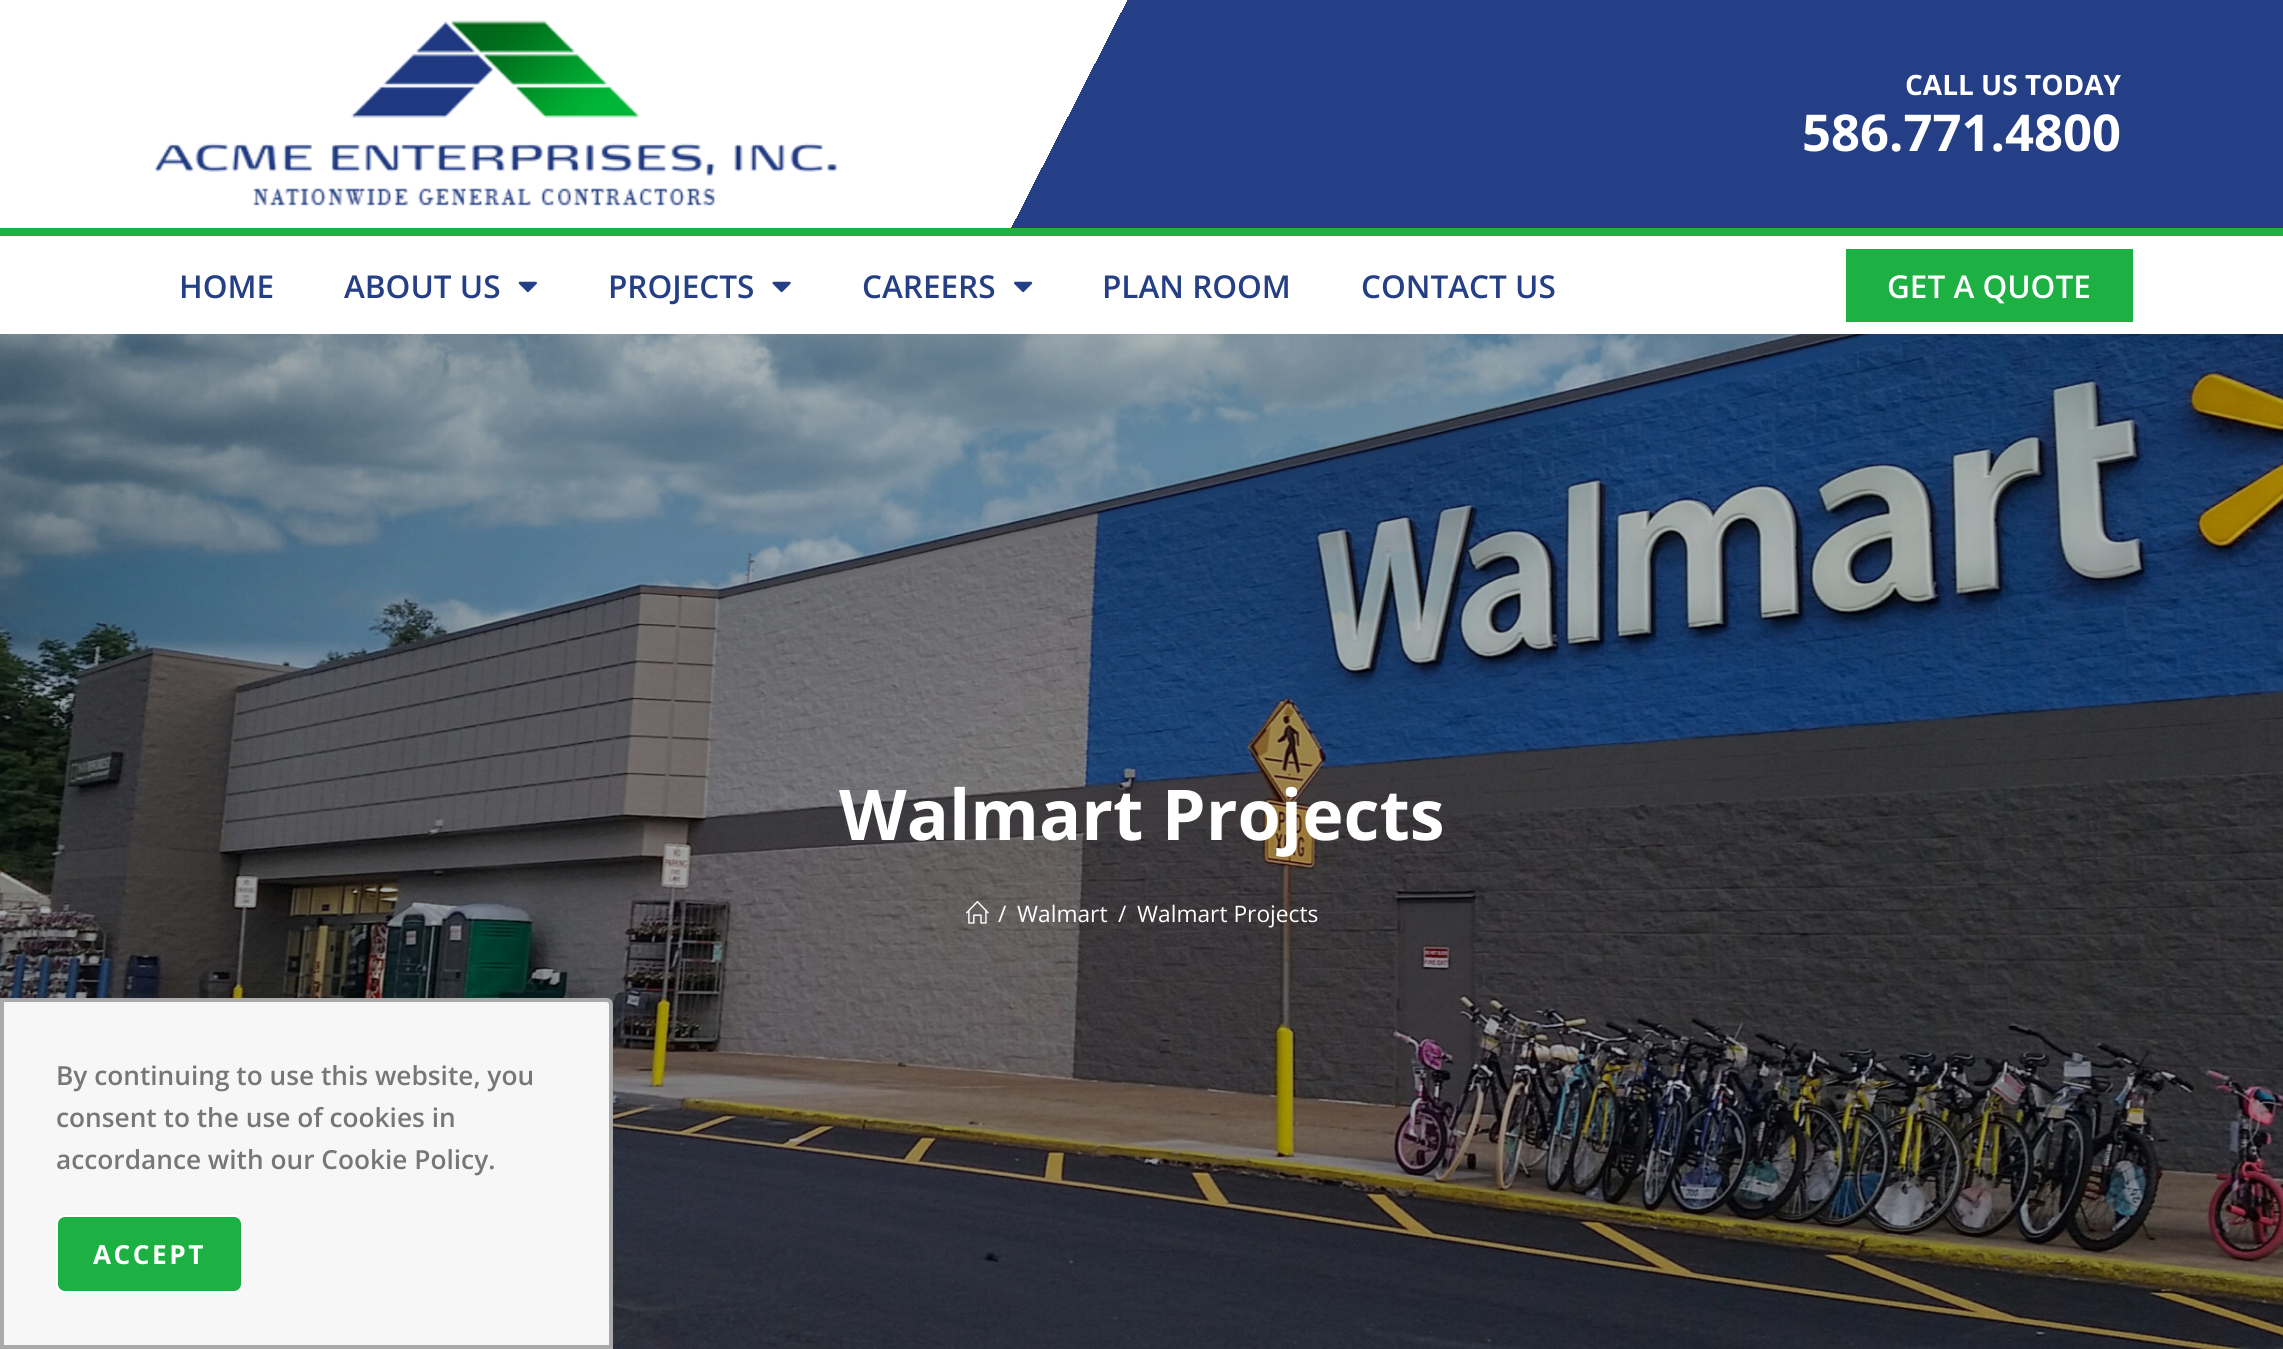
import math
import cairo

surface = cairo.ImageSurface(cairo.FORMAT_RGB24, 2283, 1349)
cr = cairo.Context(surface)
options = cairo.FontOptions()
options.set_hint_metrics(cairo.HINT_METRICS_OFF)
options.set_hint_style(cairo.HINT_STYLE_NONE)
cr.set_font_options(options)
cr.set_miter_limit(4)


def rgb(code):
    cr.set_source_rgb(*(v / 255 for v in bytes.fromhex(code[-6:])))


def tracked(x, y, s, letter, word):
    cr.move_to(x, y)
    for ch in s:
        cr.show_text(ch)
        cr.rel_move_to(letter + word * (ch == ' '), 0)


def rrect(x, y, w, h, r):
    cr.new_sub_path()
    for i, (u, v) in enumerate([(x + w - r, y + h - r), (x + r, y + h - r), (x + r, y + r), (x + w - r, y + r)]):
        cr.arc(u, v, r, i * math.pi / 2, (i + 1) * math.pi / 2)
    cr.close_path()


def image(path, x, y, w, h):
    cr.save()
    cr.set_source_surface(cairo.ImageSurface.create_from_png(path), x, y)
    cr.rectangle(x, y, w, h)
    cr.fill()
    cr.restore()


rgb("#ffffff")
cr.paint()
gradient = cairo.LinearGradient(2094, 599, 189, -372)
gradient.add_color_stop_rgba(0.53, 0.141, 0.247, 0.522, 1)
gradient.add_color_stop_rgba(0.53, 1, 1, 1, 1)
cr.set_source(gradient)
cr.rectangle(1011, 0, 1272, 228)
cr.fill()
image("img/1.png", 154, 20, 683, 186)
rgb("#1db043")
cr.rectangle(0, 228, 2283, 8)
cr.fill()
image("img/2.png", 518, 281, 19, 12)
image("img/3.png", 772, 281, 19, 12)
image("img/4.png", 1014, 281, 19, 12)
cr.rectangle(1846, 249, 287, 73)
cr.fill()
image("img/5.png", 0, 334, 2283, 1015)
image("img/6.png", 966, 901, 23, 23)
rgb("#f7f7f7")
cr.new_path()
cr.move_to(2, 1000)
cr.line_to(606, 1000)
cr.curve_to(609, 1000, 611, 1002, 611, 1005)
cr.line_to(611, 1347)
cr.line_to(2, 1347)
cr.close_path()
cr.fill_preserve()
rgb("#aaaaaa")
cr.set_line_width(4)
cr.stroke()
rgb("#1db043")
rrect(57, 1216, 185, 76, 8)
cr.fill_preserve()
rgb("#ffffff")
cr.set_line_width(2)
cr.stroke()
cr.select_font_face("Open Sans", cairo.FONT_SLANT_NORMAL, cairo.FONT_WEIGHT_BOLD)
cr.set_font_size(28)
cr.move_to(1905, 95)
cr.show_text("CALL US TODAY")
cr.set_font_size(50.75)
cr.move_to(1802, 151)
cr.show_text("586.771.4800")
cr.select_font_face("Open Sans SemiBold")
cr.set_font_size(31.5)
rgb("#243f86")
for x, y, s in [
    (179, 298, "HOME"),
    (344, 298, "ABOUT US"),
    (608, 298, "PROJECTS"),
    (862, 298, "CAREERS"),
    (1102, 298, "PLAN ROOM"),
    (1361, 298, "CONTACT US"),
]:
    cr.move_to(x, y)
    cr.show_text(s)
rgb("#ffffff")
cr.move_to(1887, 298)
cr.show_text("GET A QUOTE")
cr.select_font_face("Open Sans", cairo.FONT_SLANT_NORMAL, cairo.FONT_WEIGHT_BOLD)
cr.set_font_size(70)
cr.move_to(839, 840)
cr.show_text("Walmart Projects")
cr.select_font_face("Open Sans")
cr.set_font_size(22.75)
for x, y, s in [
    (998, 922, "/"),
    (1017, 922, "Walmart"),
    (1118, 922, "/"),
    (1137, 922, "Walmart Projects"),
]:
    cr.move_to(x, y)
    cr.show_text(s)
cr.select_font_face("Open Sans SemiBold")
cr.set_font_size(26.25)
rgb("#777777")
for x, y, s in [
    (56, 1085, "By continuing to use this website, you"),
    (56, 1127, "consent to the use of cookies in"),
    (56, 1169, "accordance with our Cookie Policy."),
]:
    cr.move_to(x, y)
    cr.show_text(s)
cr.select_font_face("Open Sans", cairo.FONT_SLANT_NORMAL, cairo.FONT_WEIGHT_BOLD)
rgb("#ffffff")
tracked(93, 1264, "ACCEPT", 2.5, 0)
surface.write_to_png("page.png")
